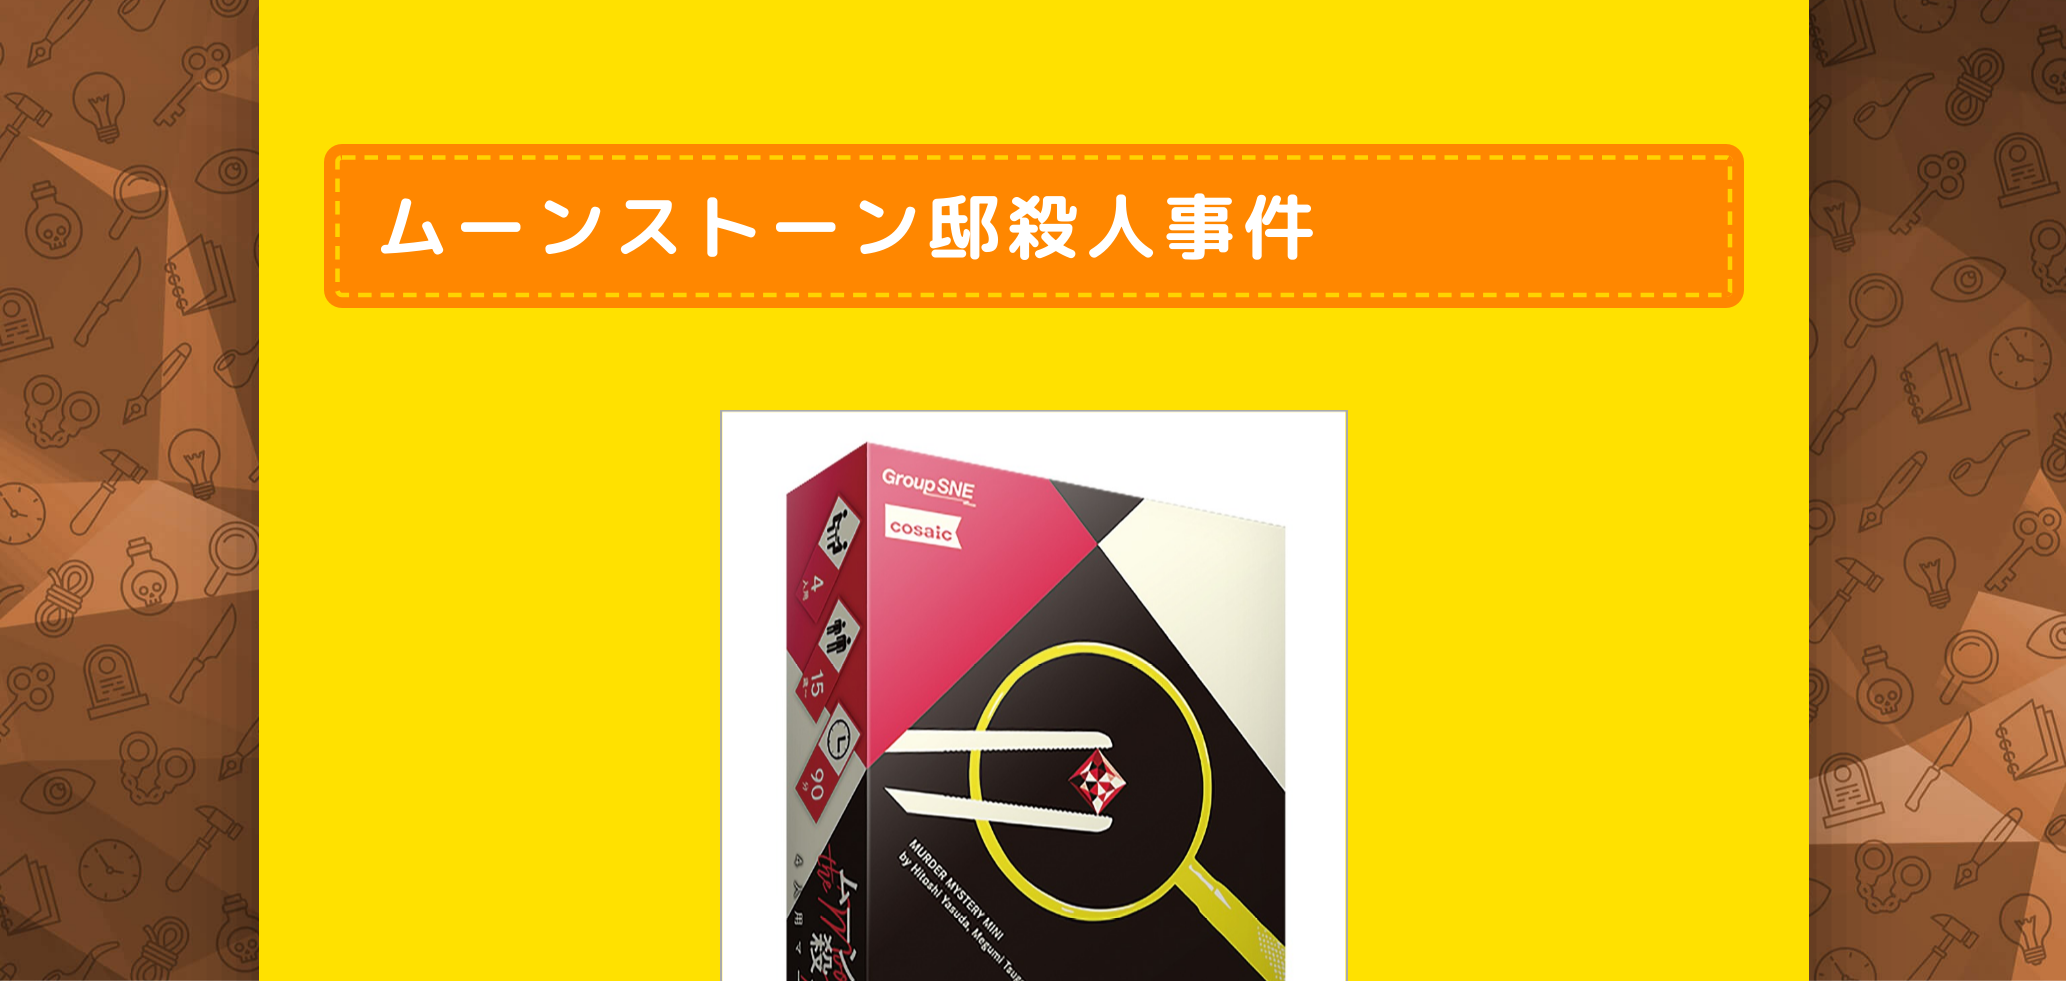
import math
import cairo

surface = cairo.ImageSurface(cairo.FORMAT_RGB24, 2066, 981)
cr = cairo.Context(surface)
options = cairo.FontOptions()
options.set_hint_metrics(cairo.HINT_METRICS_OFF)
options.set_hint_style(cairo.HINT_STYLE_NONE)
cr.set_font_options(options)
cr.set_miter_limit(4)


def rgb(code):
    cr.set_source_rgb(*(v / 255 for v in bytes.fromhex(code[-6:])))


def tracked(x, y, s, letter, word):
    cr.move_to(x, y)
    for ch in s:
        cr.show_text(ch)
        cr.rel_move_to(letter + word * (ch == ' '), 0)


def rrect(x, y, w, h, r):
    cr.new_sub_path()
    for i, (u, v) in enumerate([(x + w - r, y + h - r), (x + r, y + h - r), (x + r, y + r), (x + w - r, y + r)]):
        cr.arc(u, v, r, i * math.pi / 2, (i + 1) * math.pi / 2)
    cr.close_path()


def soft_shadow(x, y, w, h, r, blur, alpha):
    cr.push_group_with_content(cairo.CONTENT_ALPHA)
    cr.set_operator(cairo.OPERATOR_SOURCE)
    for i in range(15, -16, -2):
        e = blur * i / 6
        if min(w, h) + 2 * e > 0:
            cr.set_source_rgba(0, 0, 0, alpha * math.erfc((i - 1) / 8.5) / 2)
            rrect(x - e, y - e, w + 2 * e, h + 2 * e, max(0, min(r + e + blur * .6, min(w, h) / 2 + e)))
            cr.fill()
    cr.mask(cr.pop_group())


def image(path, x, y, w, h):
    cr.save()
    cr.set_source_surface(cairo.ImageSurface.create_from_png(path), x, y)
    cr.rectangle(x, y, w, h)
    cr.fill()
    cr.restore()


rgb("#ffffff")
cr.paint()
image("img/1.png", 0, 0, 2066, 981)
rgb("#000000")
soft_shadow(259, 0, 1550, 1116, 0, 45, 0.5)
rgb("#ffe100")
cr.rectangle(259, 0, 1550, 981)
cr.fill()
rrect(329.5, 149.5, 1409, 153, 12.5)
rgb("#ff8700")
cr.set_line_width(11)
cr.stroke()
rrect(335, 155, 1398, 142, 7)
cr.fill()
cr.new_path()
cr.move_to(342, 157.5)
cr.line_to(1726, 157.5)
cr.curve_to(1728, 157.5, 1730, 159.5, 1730, 162)
cr.line_to(1730, 290)
cr.curve_to(1730, 292.5, 1728, 295, 1726, 295)
cr.line_to(342, 295)
cr.curve_to(339.5, 295, 337.5, 292.5, 337.5, 290)
cr.line_to(337.5, 162)
cr.curve_to(337.5, 159.5, 339.5, 157.5, 342, 157.5)
cr.close_path()
rgb("#ffd300")
cr.set_line_width(4.5)
cr.set_dash([13.5, 9])
cr.stroke()
cr.rectangle(721, 411, 626, 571)
rgb("#aaaaaa")
cr.set_line_width(2)
cr.set_dash([])
cr.stroke()
image("img/2.png", 722, 411, 624, 570)
cr.select_font_face("Rounded Mplus 1c Bold", cairo.FONT_SLANT_NORMAL, cairo.FONT_WEIGHT_BOLD)
cr.set_font_size(72)
rgb("#ffffff")
tracked(376, 253, "ムーンストーン邸殺人事件", 6.75, 0)
surface.write_to_png("page.png")
